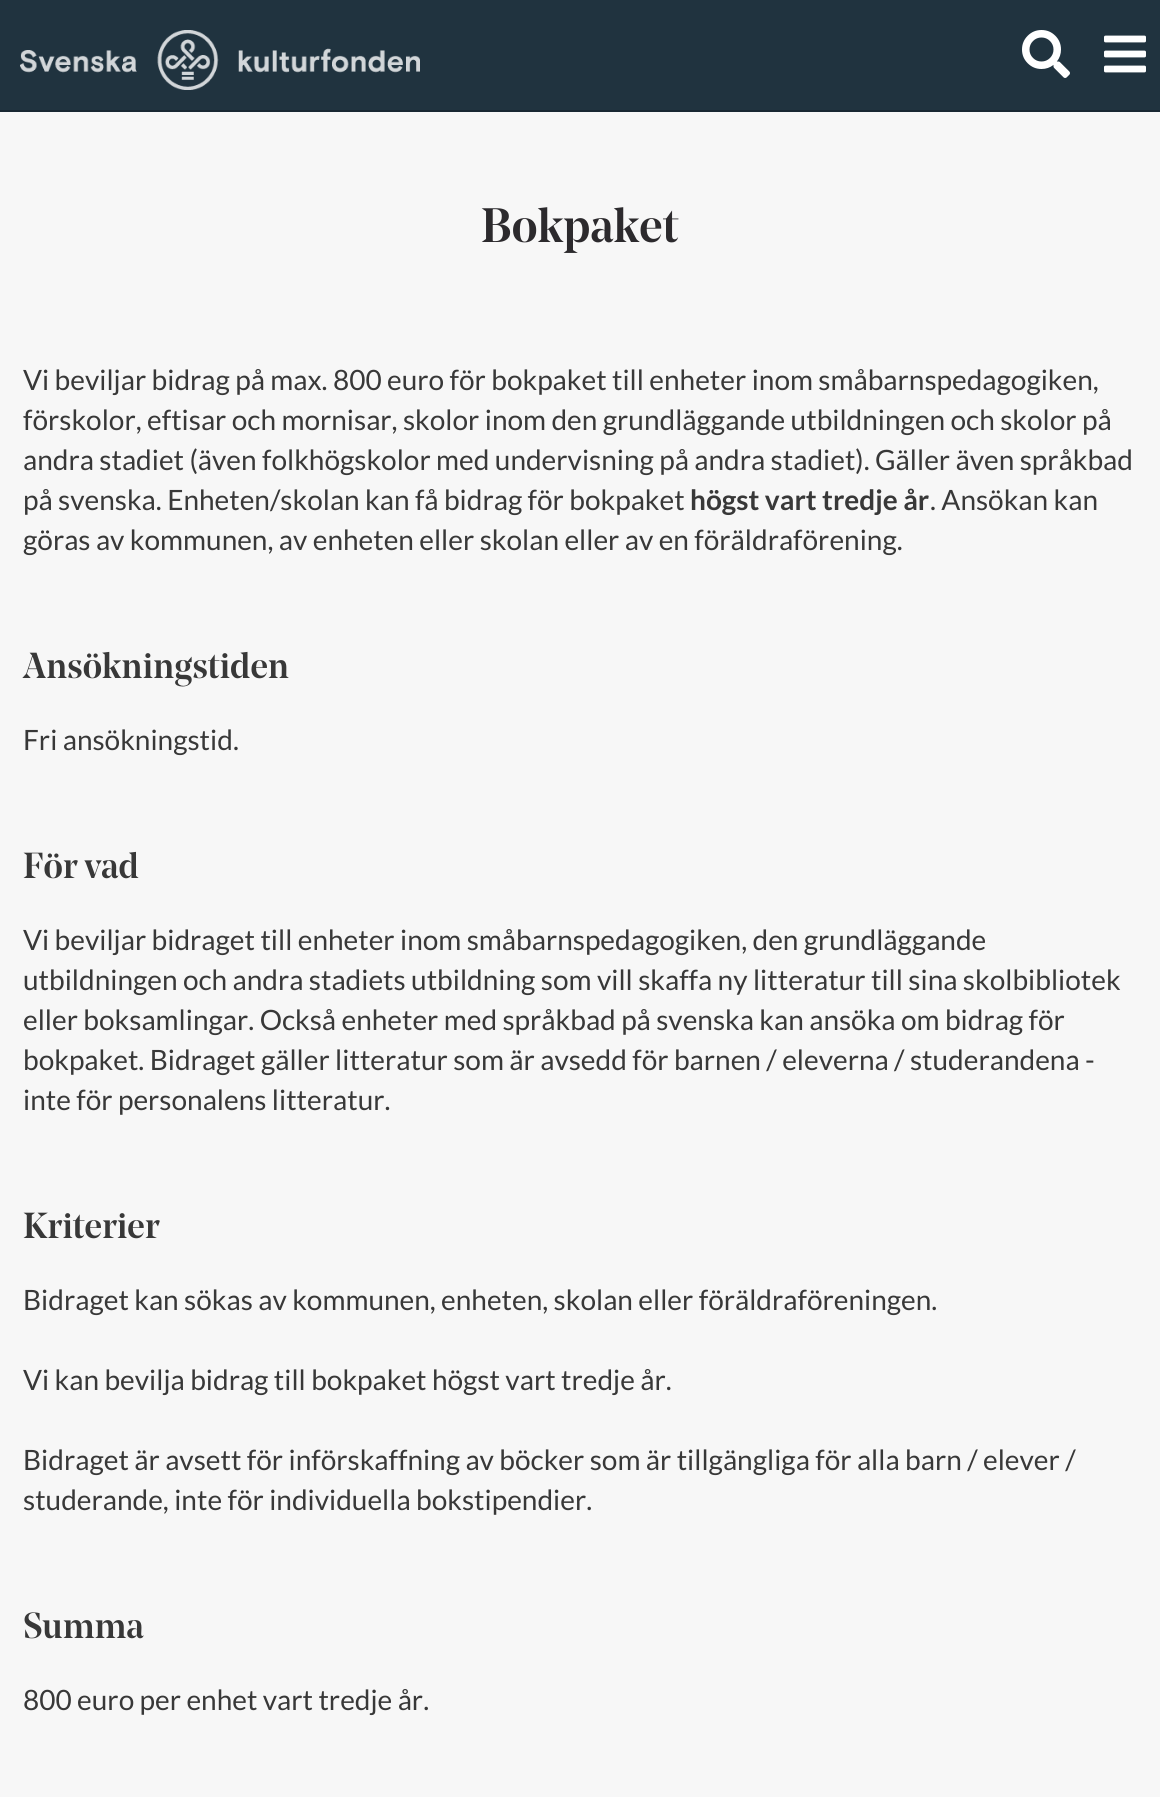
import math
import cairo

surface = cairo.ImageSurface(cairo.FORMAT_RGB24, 1160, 1797)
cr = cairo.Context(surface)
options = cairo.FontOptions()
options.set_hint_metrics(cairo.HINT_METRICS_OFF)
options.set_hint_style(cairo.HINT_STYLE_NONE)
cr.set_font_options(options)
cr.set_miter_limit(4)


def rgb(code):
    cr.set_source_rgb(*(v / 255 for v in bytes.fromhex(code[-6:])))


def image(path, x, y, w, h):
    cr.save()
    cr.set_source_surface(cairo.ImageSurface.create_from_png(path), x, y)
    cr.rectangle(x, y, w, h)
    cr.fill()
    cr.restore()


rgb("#f7f7f7")
cr.paint()
rgb("#20333f")
cr.rectangle(0, 0, 1160, 110)
cr.fill()
rgb("#192832")
cr.rectangle(0, 110, 1160, 2)
cr.fill()
image("img/1.png", 20, 30, 400, 60)
image("img/2.png", 1022, 30, 48, 48)
image("img/3.png", 1104, 35, 42, 38)
cr.select_font_face("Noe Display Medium")
cr.set_font_size(48)
rgb("#2c2a2d")
cr.move_to(481, 242)
cr.show_text("Bokpaket")
cr.select_font_face("Lato")
cr.set_font_size(28)
rgb("#383838")
for x, y, s in [
    (23, 390, "Vi beviljar bidrag på max. 800 euro för bokpaket till enheter inom småbarnspedagogiken,"),
    (23, 430, "förskolor, eftisar och mornisar, skolor inom den grundläggande utbildningen och skolor på"),
    (23, 470, "andra stadiet (även folkhögskolor med undervisning på andra stadiet). Gäller även språkbad"),
    (23, 510, "på svenska. Enheten/skolan kan få bidrag för bokpaket"),
]:
    cr.move_to(x, y)
    cr.show_text(s)
cr.select_font_face("Lato", cairo.FONT_SLANT_NORMAL, cairo.FONT_WEIGHT_BOLD)
cr.move_to(690, 510)
cr.show_text("högst vart tredje år")
cr.select_font_face("Lato")
cr.move_to(930, 510)
cr.show_text(". Ansökan kan")
cr.move_to(23, 550)
cr.show_text("göras av kommunen, av enheten eller skolan eller av en föräldraförening.")
cr.select_font_face("Noe Display Medium")
cr.set_font_size(36)
cr.move_to(23, 678)
cr.show_text("Ansökningstiden")
cr.select_font_face("Lato")
cr.set_font_size(28)
cr.move_to(23, 750)
cr.show_text("Fri ansökningstid.")
cr.select_font_face("Noe Display Medium")
cr.set_font_size(36)
cr.move_to(23, 878)
cr.show_text("För vad")
cr.select_font_face("Lato")
cr.set_font_size(28)
for x, y, s in [
    (23, 950, "Vi beviljar bidraget till enheter inom småbarnspedagogiken, den grundläggande"),
    (23, 990, "utbildningen och andra stadiets utbildning som vill skaffa ny litteratur till sina skolbibliotek"),
    (23, 1030, "eller boksamlingar. Också enheter med språkbad på svenska kan ansöka om bidrag för"),
    (23, 1070, "bokpaket. Bidraget gäller litteratur som är avsedd för barnen / eleverna / studerandena -"),
    (23, 1110, "inte för personalens litteratur."),
]:
    cr.move_to(x, y)
    cr.show_text(s)
cr.select_font_face("Noe Display Medium")
cr.set_font_size(36)
cr.move_to(23, 1238)
cr.show_text("Kriterier")
cr.select_font_face("Lato")
cr.set_font_size(28)
for x, y, s in [
    (23, 1310, "Bidraget kan sökas av kommunen, enheten, skolan eller föräldraföreningen."),
    (23, 1390, "Vi kan bevilja bidrag till bokpaket högst vart tredje år."),
    (23, 1470, "Bidraget är avsett för införskaffning av böcker som är tillgängliga för alla barn / elever /"),
    (23, 1510, "studerande, inte för individuella bokstipendier."),
]:
    cr.move_to(x, y)
    cr.show_text(s)
cr.select_font_face("Noe Display Medium")
cr.set_font_size(36)
cr.move_to(23, 1638)
cr.show_text("Summa")
cr.select_font_face("Lato")
cr.set_font_size(28)
cr.move_to(23, 1710)
cr.show_text("800 euro per enhet vart tredje år.")
surface.write_to_png("page.png")
